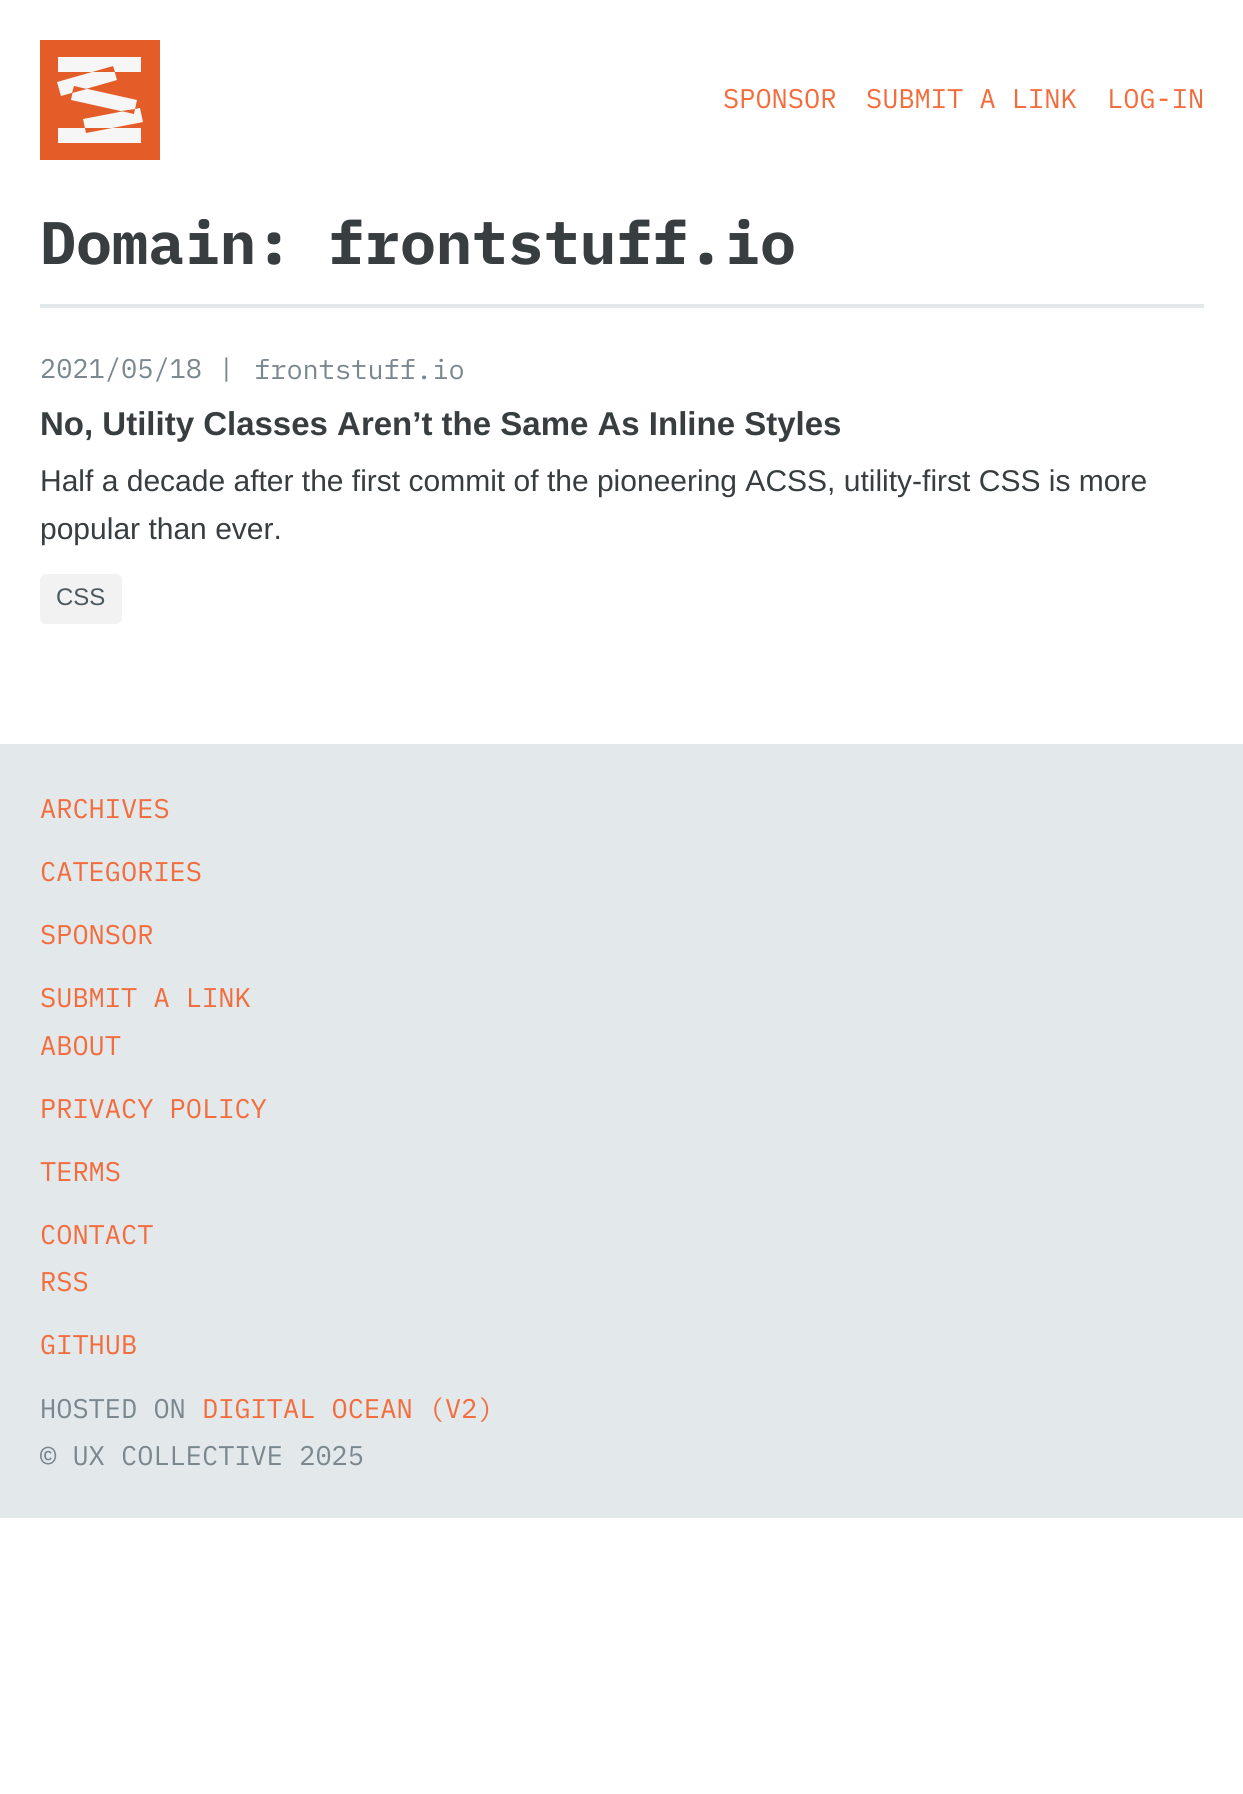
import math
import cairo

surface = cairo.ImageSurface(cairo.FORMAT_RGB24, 1243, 1794)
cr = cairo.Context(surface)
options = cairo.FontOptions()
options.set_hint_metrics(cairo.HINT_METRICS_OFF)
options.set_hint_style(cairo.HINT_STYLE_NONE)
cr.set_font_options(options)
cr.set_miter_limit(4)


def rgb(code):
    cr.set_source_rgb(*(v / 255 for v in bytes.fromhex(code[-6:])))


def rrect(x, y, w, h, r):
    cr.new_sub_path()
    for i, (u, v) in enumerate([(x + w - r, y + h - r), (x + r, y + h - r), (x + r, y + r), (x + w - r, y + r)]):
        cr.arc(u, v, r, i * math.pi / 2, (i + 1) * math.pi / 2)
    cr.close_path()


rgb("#ffffff")
cr.paint()
rgb("#e45c28")
cr.rectangle(40, 40, 120, 120)
cr.fill()
rgb("#f6f6f6")
cr.new_path()
cr.move_to(58, 57)
cr.line_to(141, 57)
cr.line_to(141, 72)
cr.line_to(58, 72)
cr.close_path()
cr.move_to(74, 86)
cr.line_to(137, 100)
cr.line_to(134, 114)
cr.line_to(71, 100)
cr.close_path()
cr.move_to(58, 128)
cr.line_to(141, 128)
cr.line_to(141, 143)
cr.line_to(58, 143)
cr.close_path()
cr.fill()
cr.new_path()
cr.move_to(57, 82)
cr.line_to(113, 66)
cr.line_to(117, 80)
cr.line_to(61, 96)
cr.close_path()
cr.move_to(83, 119)
cr.line_to(140, 108)
cr.line_to(143, 122)
cr.line_to(86, 133)
cr.close_path()
cr.fill()
rgb("#e45c28")
cr.set_fill_rule(cairo.FILL_RULE_EVEN_ODD)
cr.new_path()
cr.move_to(115, 72)
cr.line_to(92, 72)
cr.line_to(113, 66)
cr.close_path()
cr.move_to(87, 89)
cr.line_to(72, 93)
cr.line_to(74, 86)
cr.close_path()
cr.move_to(135, 109)
cr.line_to(134, 114)
cr.line_to(121, 111)
cr.close_path()
cr.move_to(112, 128)
cr.line_to(86, 133)
cr.line_to(85, 128)
cr.close_path()
cr.fill()
rgb("#e3e8eb")
cr.rectangle(40, 304, 1164, 4)
cr.fill()
rgb("#f2f2f2")
rrect(40, 574, 82, 50, 6)
cr.fill()
rgb("#e3e8eb")
cr.rectangle(0, 744, 1243, 774)
cr.fill()
cr.select_font_face("IBM Plex Mono")
cr.set_font_size(27)
rgb("#f36c3d")
for x, y, s in [
    (723, 108, "SPONSOR"),
    (866, 108, "SUBMIT A LINK"),
    (1107, 108, "LOG-IN"),
]:
    cr.move_to(x, y)
    cr.show_text(s)
cr.select_font_face("IBM Plex Mono", cairo.FONT_SLANT_NORMAL, cairo.FONT_WEIGHT_BOLD)
cr.set_font_size(60)
rgb("#383d3f")
cr.move_to(40, 264)
cr.show_text("Domain: frontstuff.io")
cr.select_font_face("IBM Plex Mono")
cr.set_font_size(27)
rgb("#79878e")
cr.move_to(40, 378)
cr.show_text("2021/05/18 |")
cr.move_to(254, 379)
cr.show_text("frontstuff.io")
cr.select_font_face("Liberation Sans", cairo.FONT_SLANT_NORMAL, cairo.FONT_WEIGHT_BOLD)
cr.set_font_size(33)
rgb("#383d3f")
cr.move_to(40, 435)
cr.show_text("No, Utility Classes Aren’t the Same As Inline Styles")
cr.select_font_face("Liberation Sans")
cr.set_font_size(30)
cr.move_to(40, 491)
cr.show_text("Half a decade after the first commit of the pioneering ACSS, utility-first CSS is more")
cr.move_to(40, 539)
cr.show_text("popular than ever.")
cr.set_font_size(24)
rgb("#4c595f")
cr.move_to(56, 605)
cr.show_text("CSS")
cr.select_font_face("IBM Plex Mono")
cr.set_font_size(27)
rgb("#f36c3d")
for x, y, s in [
    (40, 818, "ARCHIVES"),
    (40, 881, "CATEGORIES"),
    (40, 944, "SPONSOR"),
    (40, 1007, "SUBMIT A LINK"),
    (40, 1055, "ABOUT"),
    (40, 1118, "PRIVACY POLICY"),
    (40, 1181, "TERMS"),
    (40, 1244, "CONTACT"),
    (40, 1291, "RSS"),
    (40, 1354, "GITHUB"),
]:
    cr.move_to(x, y)
    cr.show_text(s)
rgb("#79878e")
cr.move_to(40, 1418)
cr.show_text("HOSTED ON")
rgb("#f36c3d")
cr.move_to(202, 1418)
cr.show_text("DIGITAL OCEAN (V2)")
rgb("#79878e")
cr.move_to(40, 1465)
cr.show_text("© UX COLLECTIVE 2025")
surface.write_to_png("page.png")
